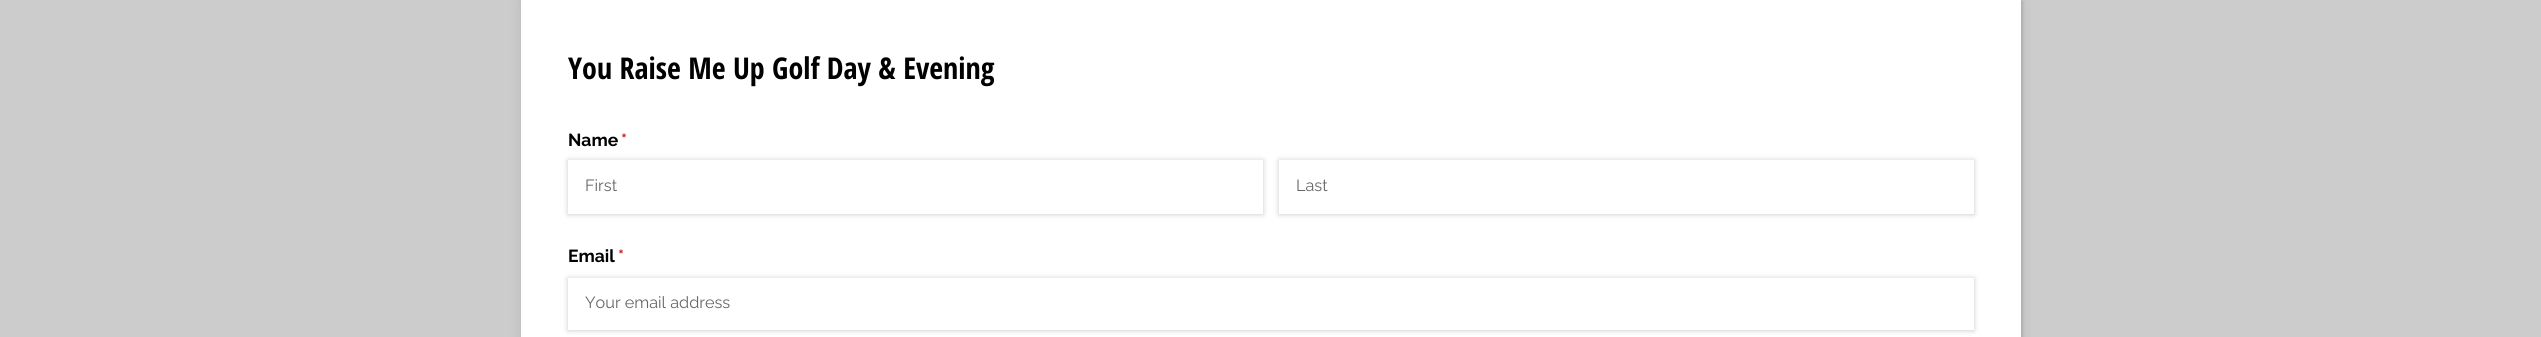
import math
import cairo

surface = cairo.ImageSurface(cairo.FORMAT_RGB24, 2541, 337)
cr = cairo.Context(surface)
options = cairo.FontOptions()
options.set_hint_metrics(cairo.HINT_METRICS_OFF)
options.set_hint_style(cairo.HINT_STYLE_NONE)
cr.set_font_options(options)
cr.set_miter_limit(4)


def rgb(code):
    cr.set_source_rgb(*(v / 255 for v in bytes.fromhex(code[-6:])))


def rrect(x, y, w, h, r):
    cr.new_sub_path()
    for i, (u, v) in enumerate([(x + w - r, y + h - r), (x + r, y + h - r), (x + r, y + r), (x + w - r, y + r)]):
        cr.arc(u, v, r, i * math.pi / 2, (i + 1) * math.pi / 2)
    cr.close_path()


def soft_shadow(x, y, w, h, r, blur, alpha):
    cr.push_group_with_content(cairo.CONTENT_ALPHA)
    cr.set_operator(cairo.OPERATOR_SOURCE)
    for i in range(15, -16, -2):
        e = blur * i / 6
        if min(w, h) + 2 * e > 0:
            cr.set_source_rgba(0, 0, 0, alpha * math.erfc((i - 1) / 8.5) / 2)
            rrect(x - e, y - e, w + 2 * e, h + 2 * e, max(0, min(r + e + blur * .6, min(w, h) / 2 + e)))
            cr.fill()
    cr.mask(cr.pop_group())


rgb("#cccccc")
cr.paint()
rgb("#000000")
soft_shadow(523, 1, 1500, 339, 0, 1, 0.1)
soft_shadow(521, 0, 1500, 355, 0, 6, 0.1)
rgb("#ffffff")
cr.rectangle(521, 0, 1500, 337)
cr.fill()
rgb("#000000")
soft_shadow(568, 161, 695, 54, 0, 2, 0.1)
rgb("#cccccc")
soft_shadow(568, 160, 695, 54, 0, 3, 0.7)
rgb("#ffffff")
cr.rectangle(568, 160, 695, 54)
cr.fill()
rgb("#000000")
soft_shadow(1279, 161, 695, 54, 0, 2, 0.1)
rgb("#cccccc")
soft_shadow(1279, 160, 695, 54, 0, 3, 0.7)
rgb("#ffffff")
cr.rectangle(1279, 160, 695, 54)
cr.fill()
rgb("#000000")
soft_shadow(568, 279, 1406, 52, 0, 2, 0.1)
rgb("#cccccc")
soft_shadow(568, 278, 1406, 52, 0, 3, 0.7)
rgb("#ffffff")
cr.rectangle(568, 278, 1406, 52)
cr.fill()
cr.select_font_face("Open Sans Condensed", cairo.FONT_SLANT_NORMAL, cairo.FONT_WEIGHT_BOLD)
cr.set_font_size(30)
rgb("#000000")
cr.move_to(568, 79)
cr.show_text("You Raise Me Up Golf Day & Evening")
cr.select_font_face("Raleway", cairo.FONT_SLANT_NORMAL, cairo.FONT_WEIGHT_BOLD)
cr.set_font_size(17.5)
cr.move_to(568, 146)
cr.show_text("Name")
rgb("#cc2a24")
cr.move_to(621, 146)
cr.show_text("*")
cr.select_font_face("Raleway")
cr.set_font_size(16.25)
rgb("#666666")
cr.move_to(585, 191)
cr.show_text("First")
cr.move_to(1296, 191)
cr.show_text("Last")
cr.select_font_face("Raleway", cairo.FONT_SLANT_NORMAL, cairo.FONT_WEIGHT_BOLD)
cr.set_font_size(17.5)
rgb("#000000")
cr.move_to(568, 262)
cr.show_text("Email")
rgb("#cc2a24")
cr.move_to(618, 262)
cr.show_text("*")
cr.select_font_face("Raleway")
cr.set_font_size(16.25)
rgb("#666666")
cr.move_to(585, 308)
cr.show_text("Your email address")
surface.write_to_png("page.png")
